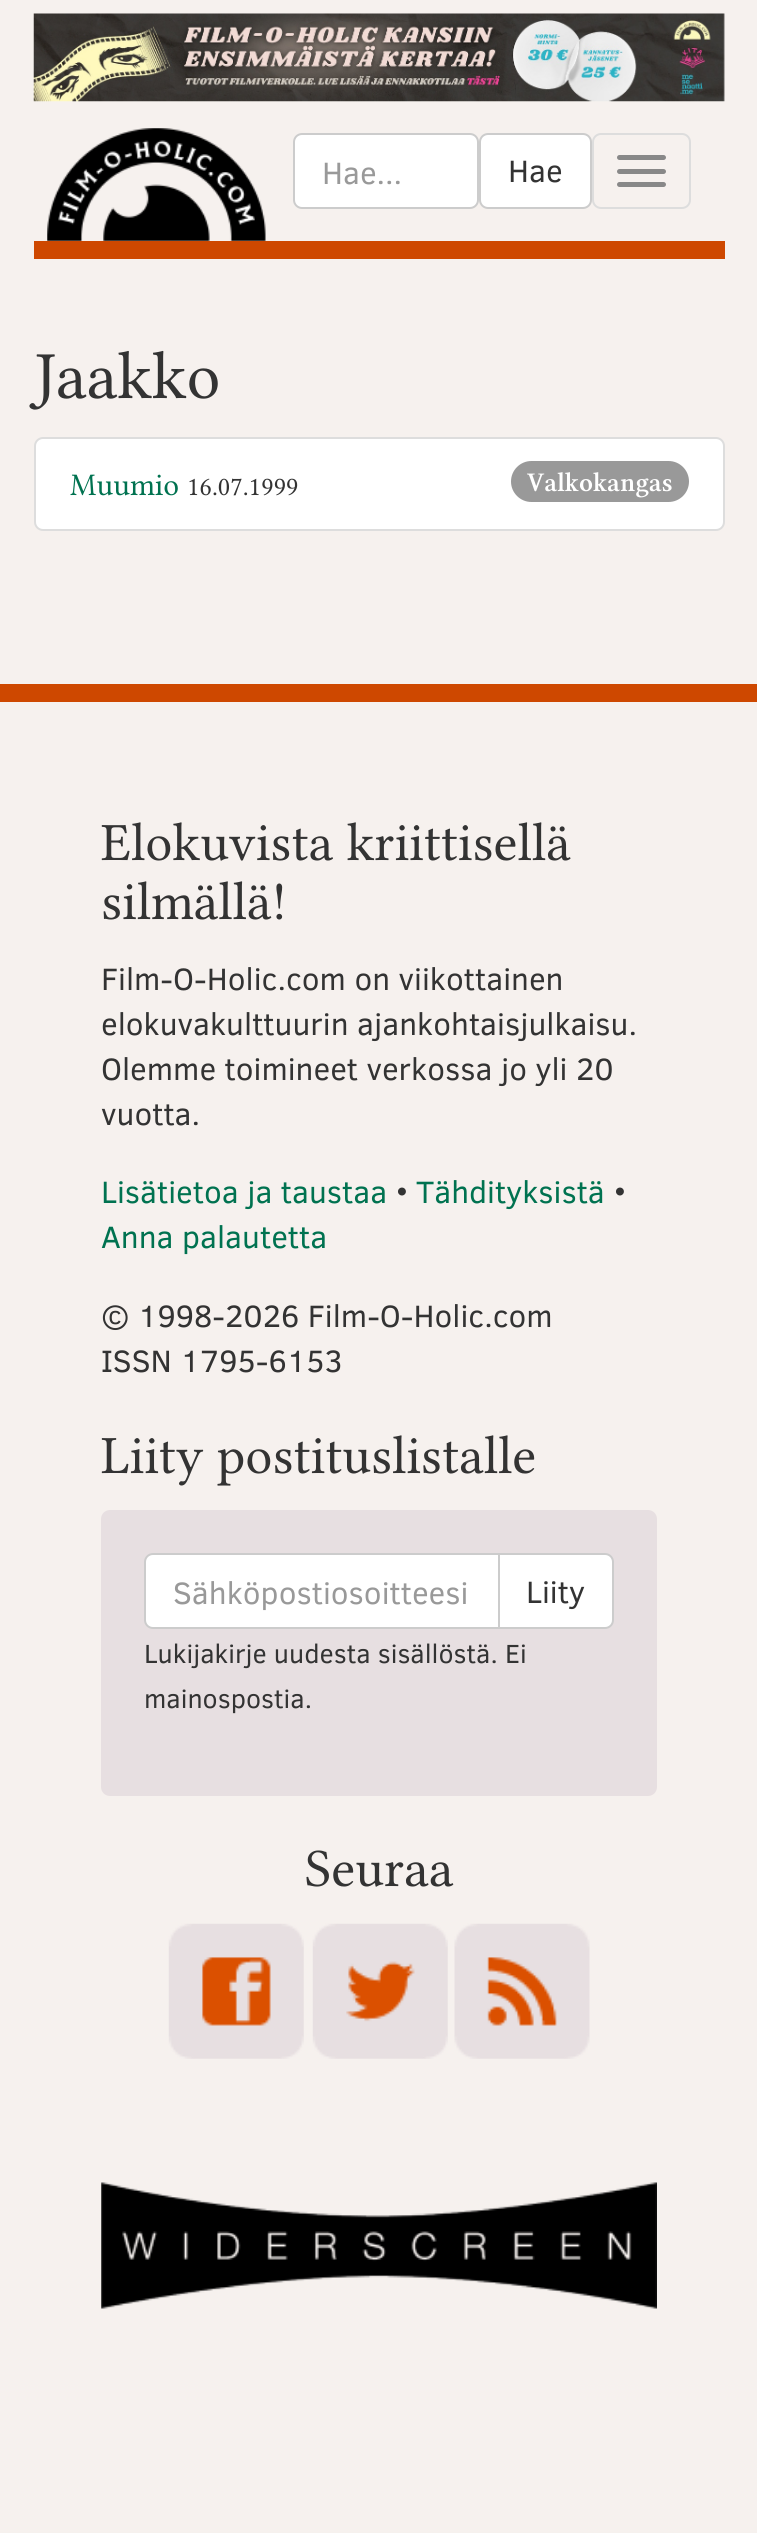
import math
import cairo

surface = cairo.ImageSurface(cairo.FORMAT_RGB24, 757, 2533)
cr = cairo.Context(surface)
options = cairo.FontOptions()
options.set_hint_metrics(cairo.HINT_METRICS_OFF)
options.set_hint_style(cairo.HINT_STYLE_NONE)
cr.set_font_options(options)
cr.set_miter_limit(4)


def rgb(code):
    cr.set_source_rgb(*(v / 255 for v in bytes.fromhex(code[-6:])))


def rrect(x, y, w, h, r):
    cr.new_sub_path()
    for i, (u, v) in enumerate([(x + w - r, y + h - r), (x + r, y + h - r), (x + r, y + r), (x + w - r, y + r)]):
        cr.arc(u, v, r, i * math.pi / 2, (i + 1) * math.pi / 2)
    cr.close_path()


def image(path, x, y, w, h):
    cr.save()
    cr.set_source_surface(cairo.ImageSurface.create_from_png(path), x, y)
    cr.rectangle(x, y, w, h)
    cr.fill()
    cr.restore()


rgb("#f6f1ee")
cr.paint()
image("img/1.png", 33, 13, 692, 89)
rgb("#ce4800")
cr.rectangle(34, 241, 691, 18)
cr.fill()
image("img/2.png", 47, 128, 219, 113)
rgb("#ffffff")
rrect(294, 134, 184, 74, 8)
cr.fill_preserve()
rgb("#cccccc")
cr.stroke()
rgb("#ffffff")
rrect(480, 134, 111, 74, 8)
cr.fill_preserve()
rgb("#cccccc")
cr.stroke()
rrect(593, 134, 97, 74, 8)
rgb("#dddddd")
cr.stroke()
rgb("#888888")
rrect(617, 155, 49, 5, 2.5)
cr.fill()
rrect(617, 169, 49, 5, 2.5)
cr.fill()
rrect(617, 182, 49, 5, 2.5)
cr.fill()
rgb("#ffffff")
rrect(35, 438, 689, 92, 8)
cr.fill_preserve()
rgb("#dddddd")
cr.stroke()
rgb("#999999")
rrect(511, 461, 178, 41, 20.5)
cr.fill()
rgb("#ce4800")
cr.rectangle(0, 684, 757, 18)
cr.fill()
rgb("#e7dfe1")
rrect(101, 1510, 556, 286, 9)
cr.fill()
rgb("#ffffff")
cr.new_path()
cr.move_to(498, 1554)
cr.line_to(605, 1554)
cr.curve_to(609.5, 1554, 613, 1557.5, 613, 1562)
cr.line_to(613, 1620)
cr.curve_to(613, 1624.5, 609.5, 1628, 605, 1628)
cr.line_to(498, 1628)
cr.close_path()
cr.fill_preserve()
rgb("#cccccc")
cr.stroke()
rgb("#ffffff")
cr.new_path()
cr.move_to(153, 1554)
cr.line_to(499, 1554)
cr.line_to(499, 1628)
cr.line_to(153, 1628)
cr.curve_to(148.5, 1628, 145, 1624.5, 145, 1620)
cr.line_to(145, 1562)
cr.curve_to(145, 1557.5, 148.5, 1554, 153, 1554)
cr.close_path()
cr.fill_preserve()
rgb("#cccccc")
cr.stroke()
image("img/3.png", 168, 1923, 136, 136)
image("img/4.png", 312, 1923, 136, 136)
image("img/5.png", 454, 1923, 136, 136)
image("img/6.png", 101, 2182, 556, 127)
cr.select_font_face("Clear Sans")
cr.set_font_size(31.5)
rgb("#999999")
cr.move_to(322, 184)
cr.show_text("Hae...")
rgb("#333333")
cr.move_to(508, 182)
cr.show_text("Hae")
cr.select_font_face("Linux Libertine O")
cr.set_font_size(67.5)
cr.move_to(34, 398)
cr.show_text("Jaakko")
cr.set_font_size(31.5)
rgb("#007250")
cr.move_to(70, 495)
cr.show_text("Muumio")
cr.set_font_size(26.75)
rgb("#333333")
cr.move_to(187, 495)
cr.show_text("16.07.1999")
cr.select_font_face("Linux Libertine O SemiBold")
cr.set_font_size(27)
rgb("#ffffff")
cr.move_to(527, 491)
cr.show_text("Valkokangas")
cr.select_font_face("Linux Libertine O")
cr.set_font_size(54)
rgb("#333333")
cr.move_to(101, 860)
cr.show_text("Elokuvista kriittisellä")
cr.move_to(101, 919)
cr.show_text("silmällä!")
cr.select_font_face("Clear Sans")
cr.set_font_size(31.5)
for x, y, s in [
    (101, 990, "Film-O-Holic.com on viikottainen"),
    (101, 1035, "elokuvakulttuurin ajankohtaisjulkaisu."),
    (101, 1080, "Olemme toimineet verkossa jo yli 20"),
    (101, 1125, "vuotta."),
]:
    cr.move_to(x, y)
    cr.show_text(s)
rgb("#007250")
cr.move_to(101, 1203)
cr.show_text("Lisätietoa ja taustaa")
rgb("#333333")
cr.move_to(396, 1203)
cr.show_text("•")
rgb("#007250")
cr.move_to(416, 1203)
cr.show_text("Tähdityksistä")
rgb("#333333")
cr.move_to(614, 1203)
cr.show_text("•")
rgb("#007250")
cr.move_to(101, 1248)
cr.show_text("Anna palautetta")
rgb("#333333")
cr.move_to(101, 1327)
cr.show_text("© 1998-2026 Film-O-Holic.com")
cr.move_to(101, 1372)
cr.show_text("ISSN 1795-6153")
cr.select_font_face("Linux Libertine O")
cr.set_font_size(54)
cr.move_to(101, 1473)
cr.show_text("Liity postituslistalle")
cr.select_font_face("Clear Sans")
cr.set_font_size(31.5)
rgb("#999999")
cr.move_to(173, 1604)
cr.show_text("Sähköpostiosoitteesi")
rgb("#333333")
cr.move_to(526, 1603)
cr.show_text("Liity")
cr.set_font_size(26.75)
cr.move_to(144, 1663)
cr.show_text("Lukijakirje uudesta sisällöstä. Ei")
cr.move_to(144, 1708)
cr.show_text("mainospostia.")
cr.select_font_face("Linux Libertine O")
cr.set_font_size(54)
cr.move_to(305, 1886)
cr.show_text("Seuraa")
surface.write_to_png("page.png")
